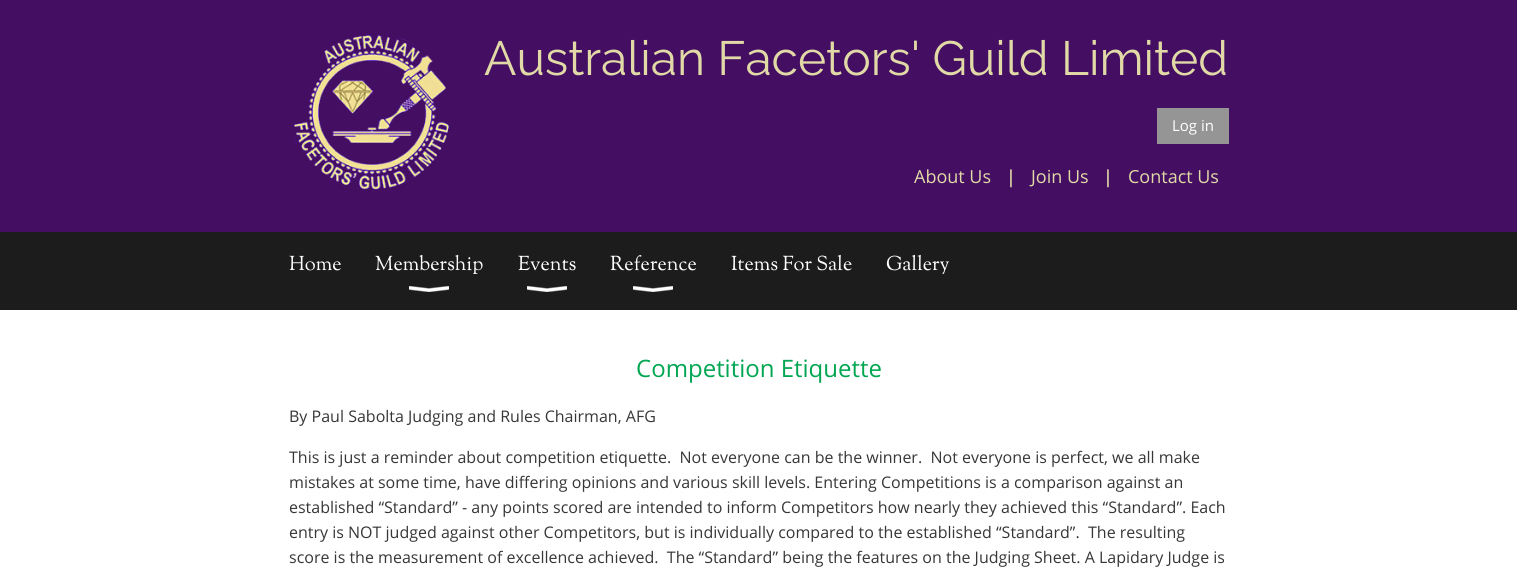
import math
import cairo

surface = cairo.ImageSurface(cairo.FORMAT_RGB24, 1517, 581)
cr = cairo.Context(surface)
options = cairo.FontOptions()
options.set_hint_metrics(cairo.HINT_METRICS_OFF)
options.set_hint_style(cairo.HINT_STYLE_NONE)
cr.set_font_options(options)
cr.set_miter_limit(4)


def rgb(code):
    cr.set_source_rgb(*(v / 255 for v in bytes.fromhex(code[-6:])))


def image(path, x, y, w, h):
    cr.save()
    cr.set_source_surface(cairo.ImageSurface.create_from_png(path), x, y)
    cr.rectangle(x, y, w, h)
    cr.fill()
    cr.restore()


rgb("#440e62")
cr.paint()
image("img/1.png", 292, 33, 157, 157)
rgb("#959595")
cr.rectangle(1157, 108, 72, 36)
cr.fill()
rgb("#1c1c1c")
cr.rectangle(0, 232, 1517, 78)
cr.fill()
image("img/2.png", 409, 286, 40, 6)
image("img/2.png", 527, 286, 40, 6)
image("img/2.png", 633, 286, 40, 6)
rgb("#ffffff")
cr.rectangle(0, 310, 1517, 271)
cr.fill()
cr.select_font_face("Raleway")
cr.set_font_size(48)
rgb("#e1daa7")
cr.move_to(484, 75)
cr.show_text("Australian Facetors' Guild Limited")
cr.select_font_face("Open Sans")
cr.set_font_size(15)
rgb("#ffffff")
cr.move_to(1172, 131)
cr.show_text("Log in")
cr.set_font_size(18)
rgb("#e1daa7")
cr.move_to(914, 183)
cr.show_text("About Us")
cr.select_font_face("Open Sans SemiBold")
cr.move_to(1006, 183)
cr.show_text("|")
cr.select_font_face("Open Sans")
cr.move_to(1031, 183)
cr.show_text("Join Us")
cr.select_font_face("Open Sans SemiBold")
cr.move_to(1103, 183)
cr.show_text("|")
cr.select_font_face("Open Sans")
cr.move_to(1128, 183)
cr.show_text("Contact Us")
cr.select_font_face("Sorts Mill Goudy")
cr.set_font_size(20)
rgb("#ffffff")
for x, y, s in [
    (289, 270, "Home"),
    (375, 270, "Membership"),
    (518, 270, "Events"),
    (610, 270, "Reference"),
    (731, 270, "Items For Sale"),
    (886, 270, "Gallery"),
]:
    cr.move_to(x, y)
    cr.show_text(s)
cr.select_font_face("Open Sans")
cr.set_font_size(24)
rgb("#00a651")
cr.move_to(636, 377)
cr.show_text("Competition Etiquette")
cr.set_font_size(16)
rgb("#373737")
for x, y, s in [
    (289, 422, "By Paul Sabolta Judging and Rules Chairman, AFG"),
    (289, 463, "This is just a reminder about competition etiquette.  Not everyone can be the winner.  Not everyone is perfect, we all make"),
    (289, 488, "mistakes at some time, have differing opinions and various skill levels. Entering Competitions is a comparison against an"),
    (289, 513, "established “Standard” - any points scored are intended to inform Competitors how nearly they achieved this “Standard”. Each"),
    (289, 538, "entry is NOT judged against other Competitors, but is individually compared to the established “Standard”.  The resulting"),
    (289, 563, "score is the measurement of excellence achieved.  The “Standard” being the features on the Judging Sheet. A Lapidary Judge is"),
]:
    cr.move_to(x, y)
    cr.show_text(s)
surface.write_to_png("page.png")
